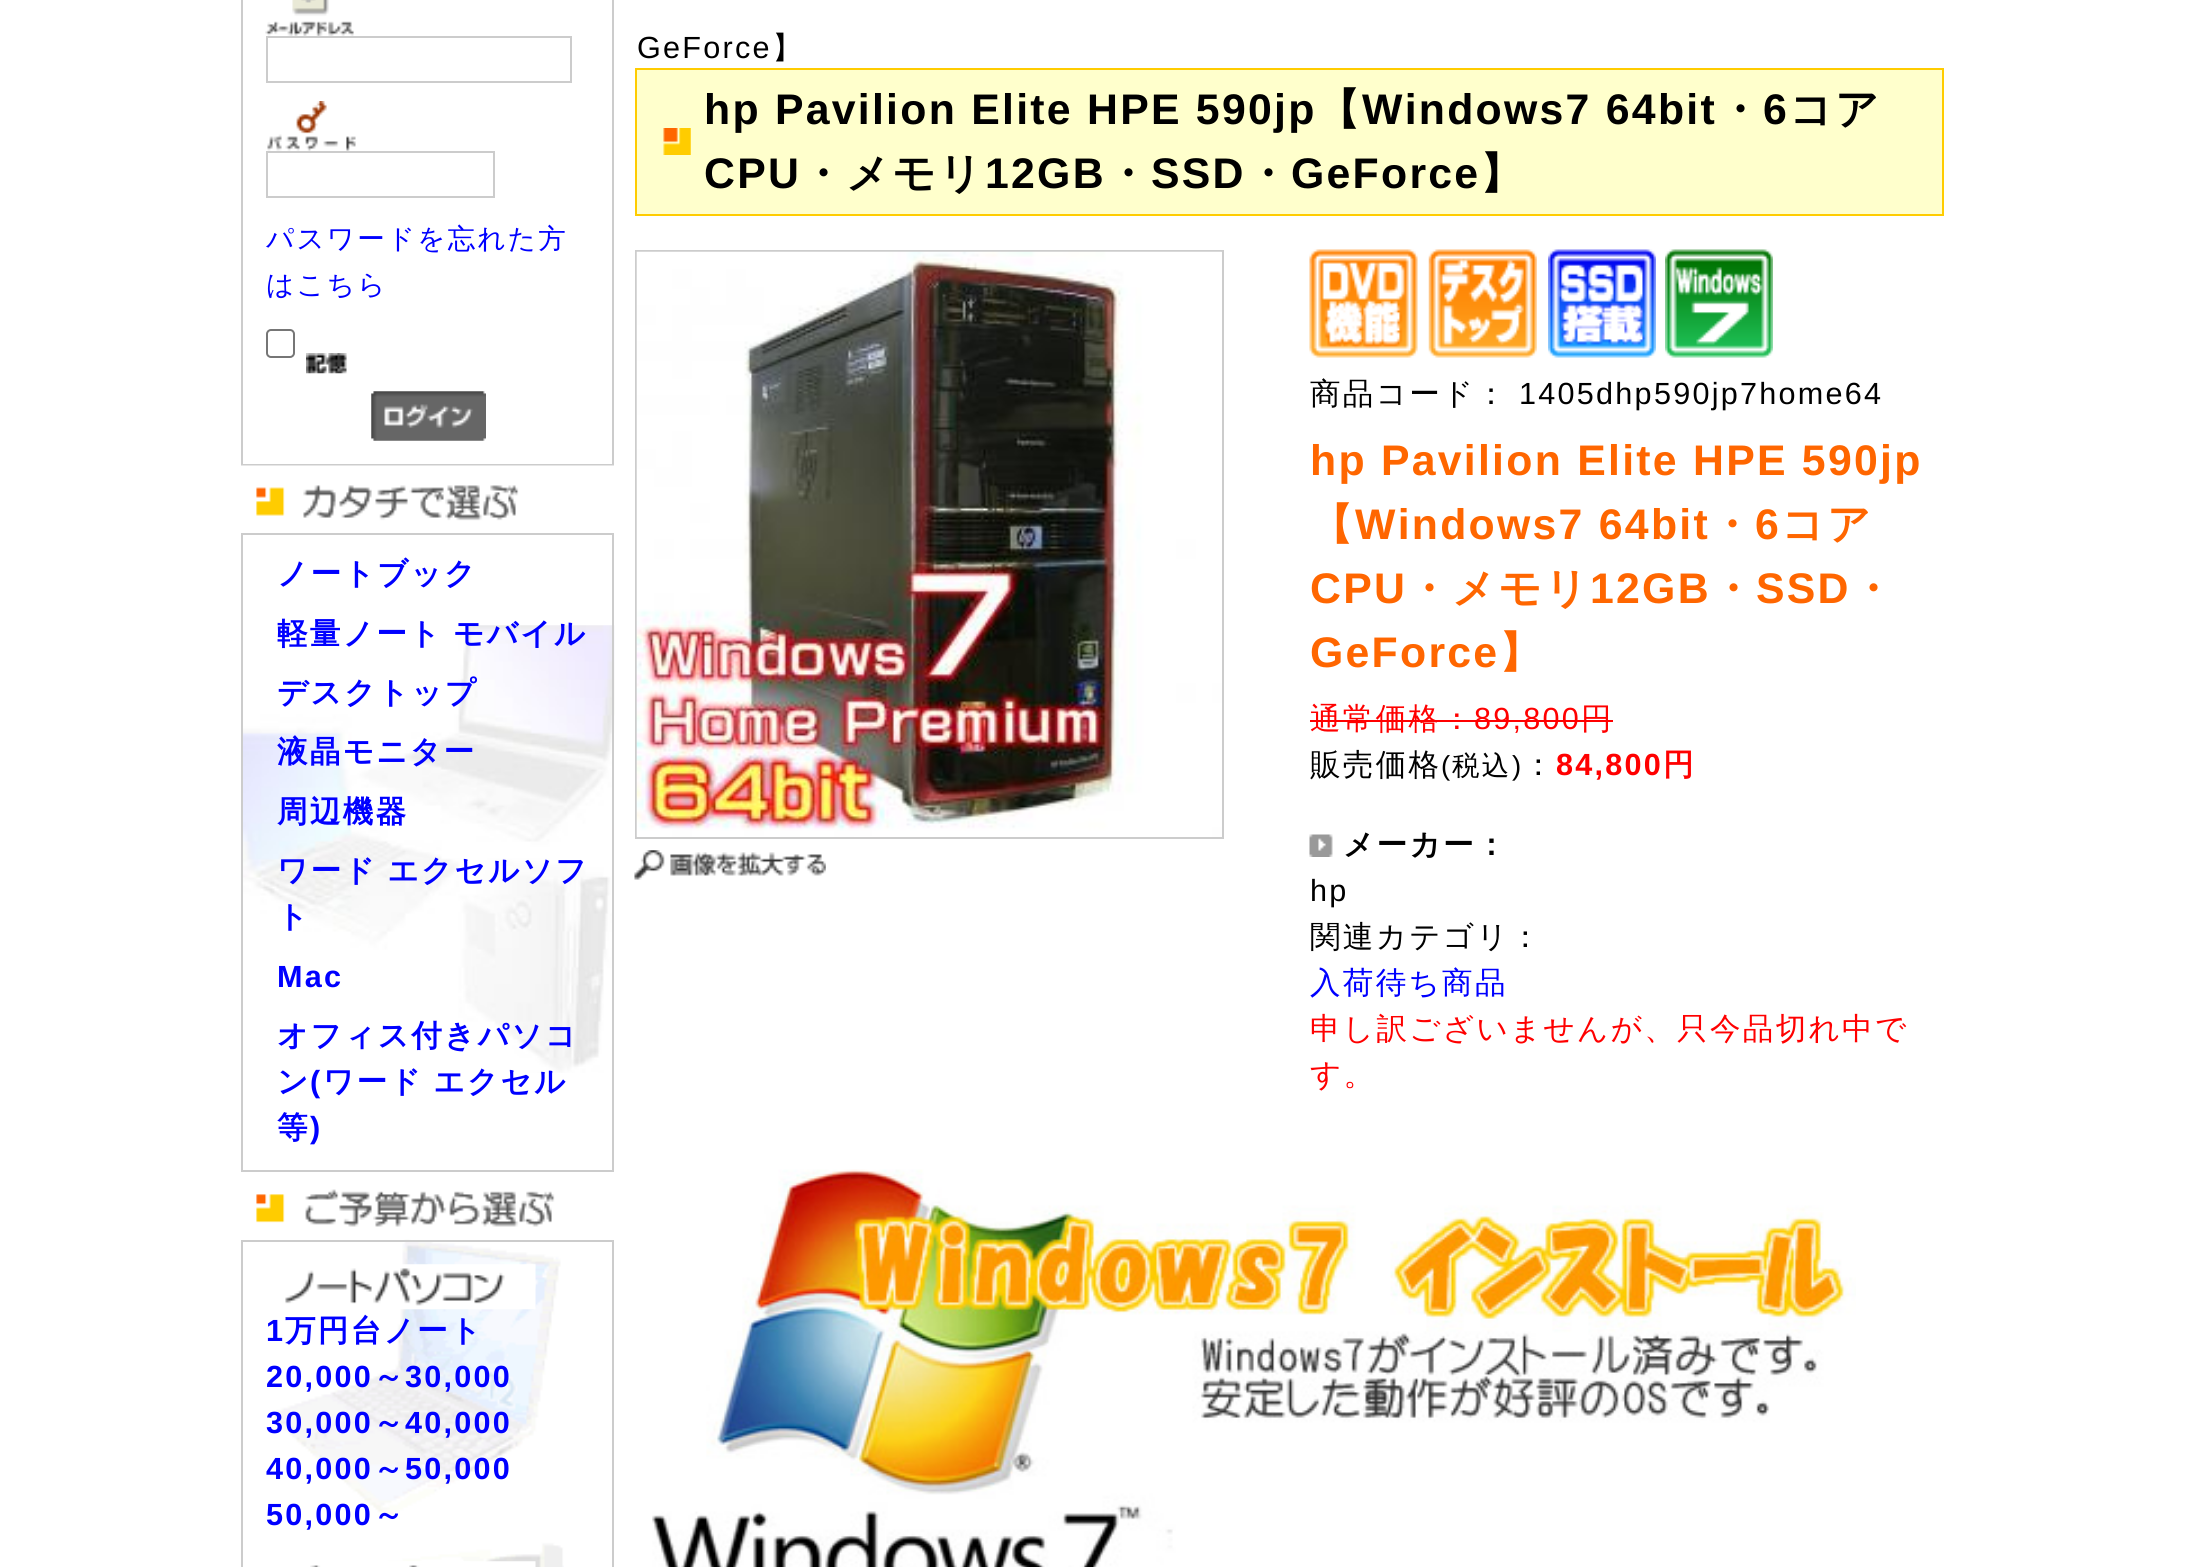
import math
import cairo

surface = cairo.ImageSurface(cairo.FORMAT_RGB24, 2204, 1567)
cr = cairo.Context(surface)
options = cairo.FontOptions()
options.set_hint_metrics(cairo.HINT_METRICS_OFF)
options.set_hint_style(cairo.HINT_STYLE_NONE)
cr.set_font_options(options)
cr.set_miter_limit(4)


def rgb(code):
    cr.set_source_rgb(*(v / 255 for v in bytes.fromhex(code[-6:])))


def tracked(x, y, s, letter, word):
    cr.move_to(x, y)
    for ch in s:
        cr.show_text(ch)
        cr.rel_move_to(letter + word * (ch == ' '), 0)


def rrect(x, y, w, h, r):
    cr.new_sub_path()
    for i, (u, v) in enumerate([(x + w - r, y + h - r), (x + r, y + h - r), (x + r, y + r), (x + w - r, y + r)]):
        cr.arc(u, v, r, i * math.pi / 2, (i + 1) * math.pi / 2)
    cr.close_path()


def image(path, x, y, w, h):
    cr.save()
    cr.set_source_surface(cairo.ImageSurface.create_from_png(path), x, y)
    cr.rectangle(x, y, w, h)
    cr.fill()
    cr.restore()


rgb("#ffffff")
cr.paint()
cr.rectangle(242, -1, 371, 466)
rgb("#cccccc")
cr.stroke()
image("img/1.png", 265, 0, 89, 36)
cr.rectangle(267, 37, 304, 45)
cr.stroke()
image("img/2.png", 267, 101, 89, 50)
cr.rectangle(267, 152, 227, 45)
cr.stroke()
rrect(267, 330, 27, 27, 4)
rgb("#767676")
cr.stroke()
image("img/3.png", 306, 353, 41, 21)
image("img/4.png", 371, 391, 115, 50)
image("img/5.png", 241, 465, 373, 56)
image("img/6.png", 243, 625, 372, 448)
cr.rectangle(242, 534, 371, 637)
rgb("#cccccc")
cr.stroke()
image("img/7.png", 256, 1189, 299, 38)
image("img/8.png", 273, 1239, 291, 328)
cr.rectangle(242, 1241, 371, 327)
cr.stroke()
image("img/9.png", 285, 1264, 251, 46)
image("img/10.png", 310, 1561, 226, 6)
rgb("#ffffcc")
cr.rectangle(637, 70, 1305, 144)
cr.fill()
image("img/11.png", 663, 128, 28, 27)
cr.rectangle(636, 69, 1307, 146)
rgb("#ffcc00")
cr.stroke()
cr.rectangle(636, 251, 587, 587)
rgb("#cccccc")
cr.stroke()
image("img/12.png", 636, 251, 586, 586)
image("img/13.png", 634, 850, 192, 30)
image("img/14.png", 1309, 249, 109, 109)
image("img/15.png", 1428, 249, 109, 109)
image("img/16.png", 1548, 249, 108, 109)
image("img/17.png", 1665, 249, 108, 109)
rgb("#ff0000")
cr.rectangle(1310, 720, 303, 2)
cr.fill()
image("img/18.png", 1309, 834, 24, 23)
image("img/19.png", 652, 1169, 1204, 398)
cr.select_font_face("WenQuanYi Zen Hei Medium")
cr.set_font_size(27.5)
rgb("#0000ff")
tracked(266, 248, "パスワードを忘れた方", 2.25, 0)
tracked(266, 294, "はこちら", 2.25, 0)
cr.select_font_face("WenQuanYi Zen Hei", cairo.FONT_SLANT_NORMAL, cairo.FONT_WEIGHT_BOLD)
cr.set_font_size(30.6)
tracked(277, 584, "ノートブック", 2.25, 0)
tracked(277, 644, "軽量ノート モバイル", 2.25, -1)
for x, y, s in [
    (277, 703, "デスクトップ"),
    (277, 762, "液晶モニター"),
    (277, 822, "周辺機器"),
]:
    tracked(x, y, s, 2.25, 0)
tracked(277, 881, "ワード エクセルソフ", 2.25, -1)
tracked(277, 927, "ト", 2.25, 0)
cr.select_font_face("Liberation Sans", cairo.FONT_SLANT_NORMAL, cairo.FONT_WEIGHT_BOLD)
tracked(277, 987, "Mac", 2.25, 0)
cr.select_font_face("WenQuanYi Zen Hei", cairo.FONT_SLANT_NORMAL, cairo.FONT_WEIGHT_BOLD)
tracked(277, 1046, "オフィス付きパソコ", 2.25, 0)
tracked(277, 1092, "ン", 2.25, 0)
cr.select_font_face("Liberation Sans", cairo.FONT_SLANT_NORMAL, cairo.FONT_WEIGHT_BOLD)
tracked(310, 1092, "(", 2.25, 0)
cr.select_font_face("WenQuanYi Zen Hei", cairo.FONT_SLANT_NORMAL, cairo.FONT_WEIGHT_BOLD)
tracked(323, 1092, "ワード エクセル", 2.25, -1)
tracked(277, 1138, "等", 2.25, 0)
cr.select_font_face("Liberation Sans", cairo.FONT_SLANT_NORMAL, cairo.FONT_WEIGHT_BOLD)
tracked(310, 1138, ")", 2.25, 0)
tracked(266, 1341, "1", 2.25, 0)
cr.select_font_face("WenQuanYi Zen Hei", cairo.FONT_SLANT_NORMAL, cairo.FONT_WEIGHT_BOLD)
tracked(285, 1341, "万円台ノート", 2.25, 0)
cr.select_font_face("Liberation Sans", cairo.FONT_SLANT_NORMAL, cairo.FONT_WEIGHT_BOLD)
tracked(266, 1387, "20,000", 2.25, 0)
cr.select_font_face("WenQuanYi Zen Hei", cairo.FONT_SLANT_NORMAL, cairo.FONT_WEIGHT_BOLD)
tracked(373, 1387, "～", 2.25, 0)
cr.select_font_face("Liberation Sans", cairo.FONT_SLANT_NORMAL, cairo.FONT_WEIGHT_BOLD)
tracked(405, 1387, "30,000", 2.25, 0)
tracked(266, 1433, "30,000", 2.25, 0)
cr.select_font_face("WenQuanYi Zen Hei", cairo.FONT_SLANT_NORMAL, cairo.FONT_WEIGHT_BOLD)
tracked(373, 1433, "～", 2.25, 0)
cr.select_font_face("Liberation Sans", cairo.FONT_SLANT_NORMAL, cairo.FONT_WEIGHT_BOLD)
tracked(405, 1433, "40,000", 2.25, 0)
tracked(266, 1479, "40,000", 2.25, 0)
cr.select_font_face("WenQuanYi Zen Hei", cairo.FONT_SLANT_NORMAL, cairo.FONT_WEIGHT_BOLD)
tracked(373, 1479, "～", 2.25, 0)
cr.select_font_face("Liberation Sans", cairo.FONT_SLANT_NORMAL, cairo.FONT_WEIGHT_BOLD)
tracked(405, 1479, "50,000", 2.25, 0)
tracked(266, 1525, "50,000", 2.25, 0)
cr.select_font_face("WenQuanYi Zen Hei", cairo.FONT_SLANT_NORMAL, cairo.FONT_WEIGHT_BOLD)
tracked(373, 1525, "～", 2.25, 0)
cr.select_font_face("Liberation Sans")
rgb("#000000")
tracked(637, 58, "GeForce", 2.25, 0)
cr.select_font_face("WenQuanYi Zen Hei Medium")
tracked(772, 58, "】", 2.25, 0)
cr.select_font_face("Liberation Sans", cairo.FONT_SLANT_NORMAL, cairo.FONT_WEIGHT_BOLD)
cr.set_font_size(42.8)
tracked(704, 124, "hp Pavilion Elite HPE 590jp", 2.25, 0)
cr.select_font_face("WenQuanYi Zen Hei", cairo.FONT_SLANT_NORMAL, cairo.FONT_WEIGHT_BOLD)
tracked(1317, 124, "【", 2.25, 0)
cr.select_font_face("Liberation Sans", cairo.FONT_SLANT_NORMAL, cairo.FONT_WEIGHT_BOLD)
tracked(1362, 124, "Windows7 64bit", 2.25, 0)
cr.select_font_face("WenQuanYi Zen Hei", cairo.FONT_SLANT_NORMAL, cairo.FONT_WEIGHT_BOLD)
tracked(1718, 124, "・", 2.25, 0)
cr.select_font_face("Liberation Sans", cairo.FONT_SLANT_NORMAL, cairo.FONT_WEIGHT_BOLD)
tracked(1763, 124, "6", 2.25, 0)
cr.select_font_face("WenQuanYi Zen Hei", cairo.FONT_SLANT_NORMAL, cairo.FONT_WEIGHT_BOLD)
tracked(1789, 124, "コア", 2.25, 0)
cr.select_font_face("Liberation Sans", cairo.FONT_SLANT_NORMAL, cairo.FONT_WEIGHT_BOLD)
tracked(704, 188, "CPU", 2.25, 0)
cr.select_font_face("WenQuanYi Zen Hei", cairo.FONT_SLANT_NORMAL, cairo.FONT_WEIGHT_BOLD)
tracked(801, 188, "・メモリ", 2.25, 0)
cr.select_font_face("Liberation Sans", cairo.FONT_SLANT_NORMAL, cairo.FONT_WEIGHT_BOLD)
tracked(985, 188, "12GB", 2.25, 0)
cr.select_font_face("WenQuanYi Zen Hei", cairo.FONT_SLANT_NORMAL, cairo.FONT_WEIGHT_BOLD)
tracked(1106, 188, "・", 2.25, 0)
cr.select_font_face("Liberation Sans", cairo.FONT_SLANT_NORMAL, cairo.FONT_WEIGHT_BOLD)
tracked(1151, 188, "SSD", 2.25, 0)
cr.select_font_face("WenQuanYi Zen Hei", cairo.FONT_SLANT_NORMAL, cairo.FONT_WEIGHT_BOLD)
tracked(1246, 188, "・", 2.25, 0)
cr.select_font_face("Liberation Sans", cairo.FONT_SLANT_NORMAL, cairo.FONT_WEIGHT_BOLD)
tracked(1291, 188, "GeForce", 2.25, 0)
cr.select_font_face("WenQuanYi Zen Hei", cairo.FONT_SLANT_NORMAL, cairo.FONT_WEIGHT_BOLD)
tracked(1480, 188, "】", 2.25, 0)
cr.select_font_face("WenQuanYi Zen Hei Medium")
cr.set_font_size(30.6)
tracked(1310, 404, "商品コード：", 2.25, 0)
cr.select_font_face("Liberation Sans")
tracked(1519, 404, "1405dhp590jp7home64", 2.25, 0)
cr.select_font_face("Liberation Sans", cairo.FONT_SLANT_NORMAL, cairo.FONT_WEIGHT_BOLD)
cr.set_font_size(42.8)
rgb("#ff6600")
tracked(1310, 475, "hp Pavilion Elite HPE 590jp", 2.25, 0)
cr.select_font_face("WenQuanYi Zen Hei", cairo.FONT_SLANT_NORMAL, cairo.FONT_WEIGHT_BOLD)
tracked(1310, 539, "【", 2.25, 0)
cr.select_font_face("Liberation Sans", cairo.FONT_SLANT_NORMAL, cairo.FONT_WEIGHT_BOLD)
tracked(1355, 539, "Windows7 64bit", 2.25, 0)
cr.select_font_face("WenQuanYi Zen Hei", cairo.FONT_SLANT_NORMAL, cairo.FONT_WEIGHT_BOLD)
tracked(1710, 539, "・", 2.25, 0)
cr.select_font_face("Liberation Sans", cairo.FONT_SLANT_NORMAL, cairo.FONT_WEIGHT_BOLD)
tracked(1755, 539, "6", 2.25, 0)
cr.select_font_face("WenQuanYi Zen Hei", cairo.FONT_SLANT_NORMAL, cairo.FONT_WEIGHT_BOLD)
tracked(1781, 539, "コア", 2.25, 0)
cr.select_font_face("Liberation Sans", cairo.FONT_SLANT_NORMAL, cairo.FONT_WEIGHT_BOLD)
tracked(1310, 603, "CPU", 2.25, 0)
cr.select_font_face("WenQuanYi Zen Hei", cairo.FONT_SLANT_NORMAL, cairo.FONT_WEIGHT_BOLD)
tracked(1407, 603, "・メモリ", 2.25, 0)
cr.select_font_face("Liberation Sans", cairo.FONT_SLANT_NORMAL, cairo.FONT_WEIGHT_BOLD)
tracked(1590, 603, "12GB", 2.25, 0)
cr.select_font_face("WenQuanYi Zen Hei", cairo.FONT_SLANT_NORMAL, cairo.FONT_WEIGHT_BOLD)
tracked(1711, 603, "・", 2.25, 0)
cr.select_font_face("Liberation Sans", cairo.FONT_SLANT_NORMAL, cairo.FONT_WEIGHT_BOLD)
tracked(1756, 603, "SSD", 2.25, 0)
cr.select_font_face("WenQuanYi Zen Hei", cairo.FONT_SLANT_NORMAL, cairo.FONT_WEIGHT_BOLD)
tracked(1851, 603, "・", 2.25, 0)
cr.select_font_face("Liberation Sans", cairo.FONT_SLANT_NORMAL, cairo.FONT_WEIGHT_BOLD)
tracked(1310, 667, "GeForce", 2.25, 0)
cr.select_font_face("WenQuanYi Zen Hei", cairo.FONT_SLANT_NORMAL, cairo.FONT_WEIGHT_BOLD)
tracked(1499, 667, "】", 2.25, 0)
cr.select_font_face("WenQuanYi Zen Hei Medium")
cr.set_font_size(30.6)
rgb("#ff0000")
tracked(1310, 729, "通常価格：", 2.25, 0)
cr.select_font_face("Liberation Sans")
tracked(1474, 729, "89,800", 2.25, 0)
cr.select_font_face("WenQuanYi Zen Hei Medium")
tracked(1581, 729, "円", 2.25, 0)
rgb("#000000")
tracked(1310, 775, "販売価格", 2.25, 0)
cr.select_font_face("Liberation Sans")
cr.set_font_size(27.5)
tracked(1441, 775, "(", 2.25, 0)
cr.select_font_face("WenQuanYi Zen Hei Medium")
tracked(1452, 775, "税込", 2.25, 0)
cr.select_font_face("Liberation Sans")
tracked(1512, 775, ")", 2.25, 0)
cr.select_font_face("WenQuanYi Zen Hei Medium")
cr.set_font_size(30.6)
tracked(1523, 775, "：", 2.25, 0)
cr.select_font_face("Liberation Sans", cairo.FONT_SLANT_NORMAL, cairo.FONT_WEIGHT_BOLD)
rgb("#ff0000")
tracked(1556, 775, "84,800", 2.25, 0)
cr.select_font_face("WenQuanYi Zen Hei", cairo.FONT_SLANT_NORMAL, cairo.FONT_WEIGHT_BOLD)
tracked(1663, 775, "円", 2.25, 0)
rgb("#000000")
tracked(1343, 855, "メーカー：", 2.25, 0)
cr.select_font_face("Liberation Sans")
tracked(1310, 901, "hp", 2.25, 0)
cr.select_font_face("WenQuanYi Zen Hei Medium")
tracked(1310, 947, "関連カテゴリ：", 2.25, 0)
rgb("#0000ff")
tracked(1310, 993, "入荷待ち商品", 2.25, 0)
rgb("#ff0000")
tracked(1310, 1039, "申し訳ございませんが、只今品切れ中で", 2.25, 0)
tracked(1310, 1085, "す。", 2.25, 0)
surface.write_to_png("page.png")
